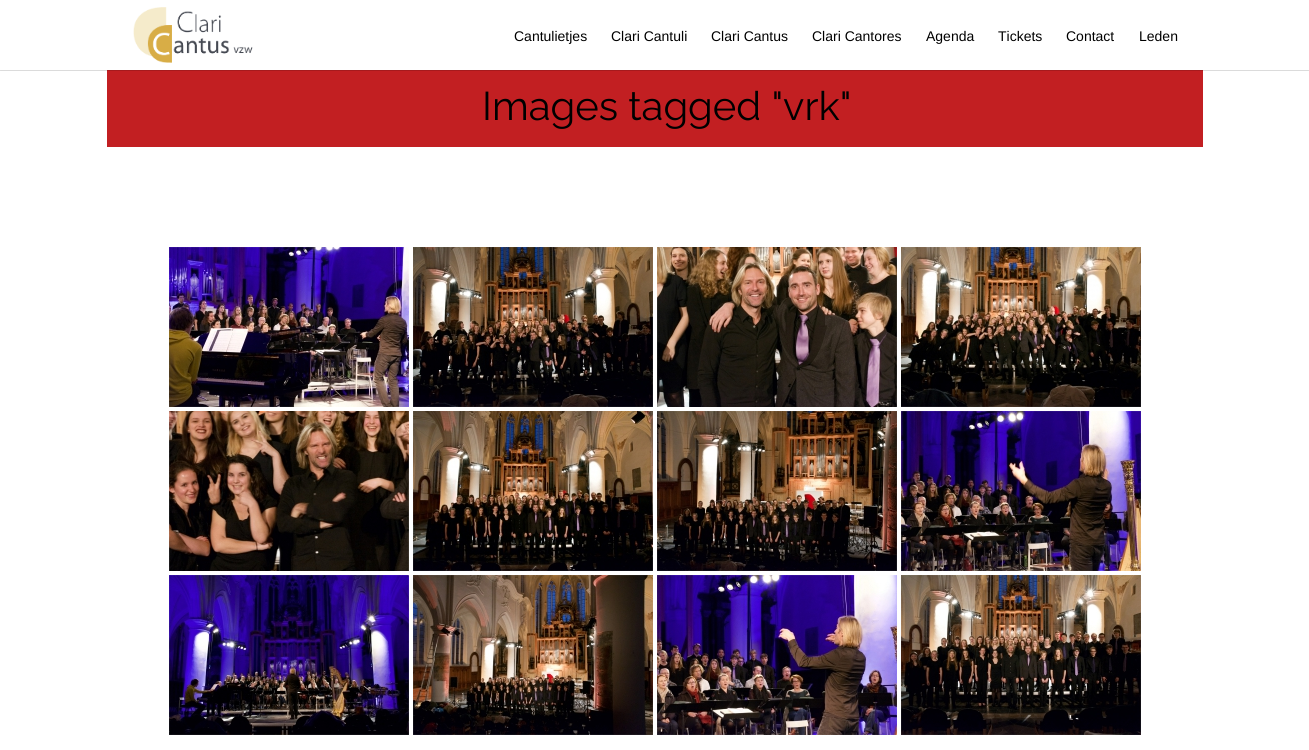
import math
import cairo

surface = cairo.ImageSurface(cairo.FORMAT_RGB24, 1309, 750)
cr = cairo.Context(surface)
options = cairo.FontOptions()
options.set_hint_metrics(cairo.HINT_METRICS_OFF)
options.set_hint_style(cairo.HINT_STYLE_NONE)
cr.set_font_options(options)
cr.set_miter_limit(4)


def rgb(code):
    cr.set_source_rgb(*(v / 255 for v in bytes.fromhex(code[-6:])))


def rrect(x, y, w, h, r):
    cr.new_sub_path()
    for i, (u, v) in enumerate([(x + w - r, y + h - r), (x + r, y + h - r), (x + r, y + r), (x + w - r, y + r)]):
        cr.arc(u, v, r, i * math.pi / 2, (i + 1) * math.pi / 2)
    cr.close_path()


def soft_shadow(x, y, w, h, r, blur, alpha):
    cr.push_group_with_content(cairo.CONTENT_ALPHA)
    cr.set_operator(cairo.OPERATOR_SOURCE)
    for i in range(15, -16, -2):
        e = blur * i / 6
        if min(w, h) + 2 * e > 0:
            cr.set_source_rgba(0, 0, 0, alpha * math.erfc((i - 1) / 8.5) / 2)
            rrect(x - e, y - e, w + 2 * e, h + 2 * e, max(0, min(r + e + blur * .6, min(w, h) / 2 + e)))
            cr.fill()
    cr.mask(cr.pop_group())


def image(path, x, y, w, h):
    cr.save()
    cr.set_source_surface(cairo.ImageSurface.create_from_png(path), x, y)
    cr.rectangle(x, y, w, h)
    cr.fill()
    cr.restore()


rgb("#ffffff")
cr.paint()
for x, y, w, h, color in [
    (0, 70, 1309, 1, "#f0f0f0"),
    (107, 71, 1096, 76, "#c21f22"),
    (107, 70, 1096, 1, "#b61d20"),
]:
    rgb(color)
    cr.rectangle(x, y, w, h)
    cr.fill()
cr.save()
cr.rectangle(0, 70, 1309, 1)
cr.clip()
rgb("#000000")
soft_shadow(0, 1, 1309, 70, 0, 0.5, 0.1)
cr.restore()
image("img/1.png", 133, 7, 120, 56)
image("img/2.png", 169, 247, 240, 160)
image("img/3.png", 413, 247, 240, 160)
image("img/4.png", 657, 247, 240, 160)
image("img/5.png", 901, 247, 240, 160)
image("img/6.png", 169, 411, 240, 160)
image("img/7.png", 413, 411, 240, 160)
image("img/8.png", 657, 411, 240, 160)
image("img/9.png", 901, 411, 240, 160)
image("img/10.png", 169, 575, 240, 160)
image("img/11.png", 413, 575, 240, 160)
image("img/12.png", 657, 575, 240, 160)
image("img/13.png", 901, 575, 240, 160)
cr.select_font_face("Liberation Sans")
cr.set_font_size(14)
rgb("#000000")
for x, y, s in [
    (514, 41, "Cantulietjes"),
    (611, 41, "Clari Cantuli"),
    (711, 41, "Clari Cantus"),
    (812, 41, "Clari Cantores"),
    (926, 41, "Agenda"),
    (998, 41, "Tickets"),
    (1066, 41, "Contact"),
    (1139, 41, "Leden"),
]:
    cr.move_to(x, y)
    cr.show_text(s)
cr.select_font_face("Raleway")
cr.set_font_size(40)
cr.move_to(482, 120)
cr.show_text("Images tagged \"vrk\"")
surface.write_to_png("page.png")
